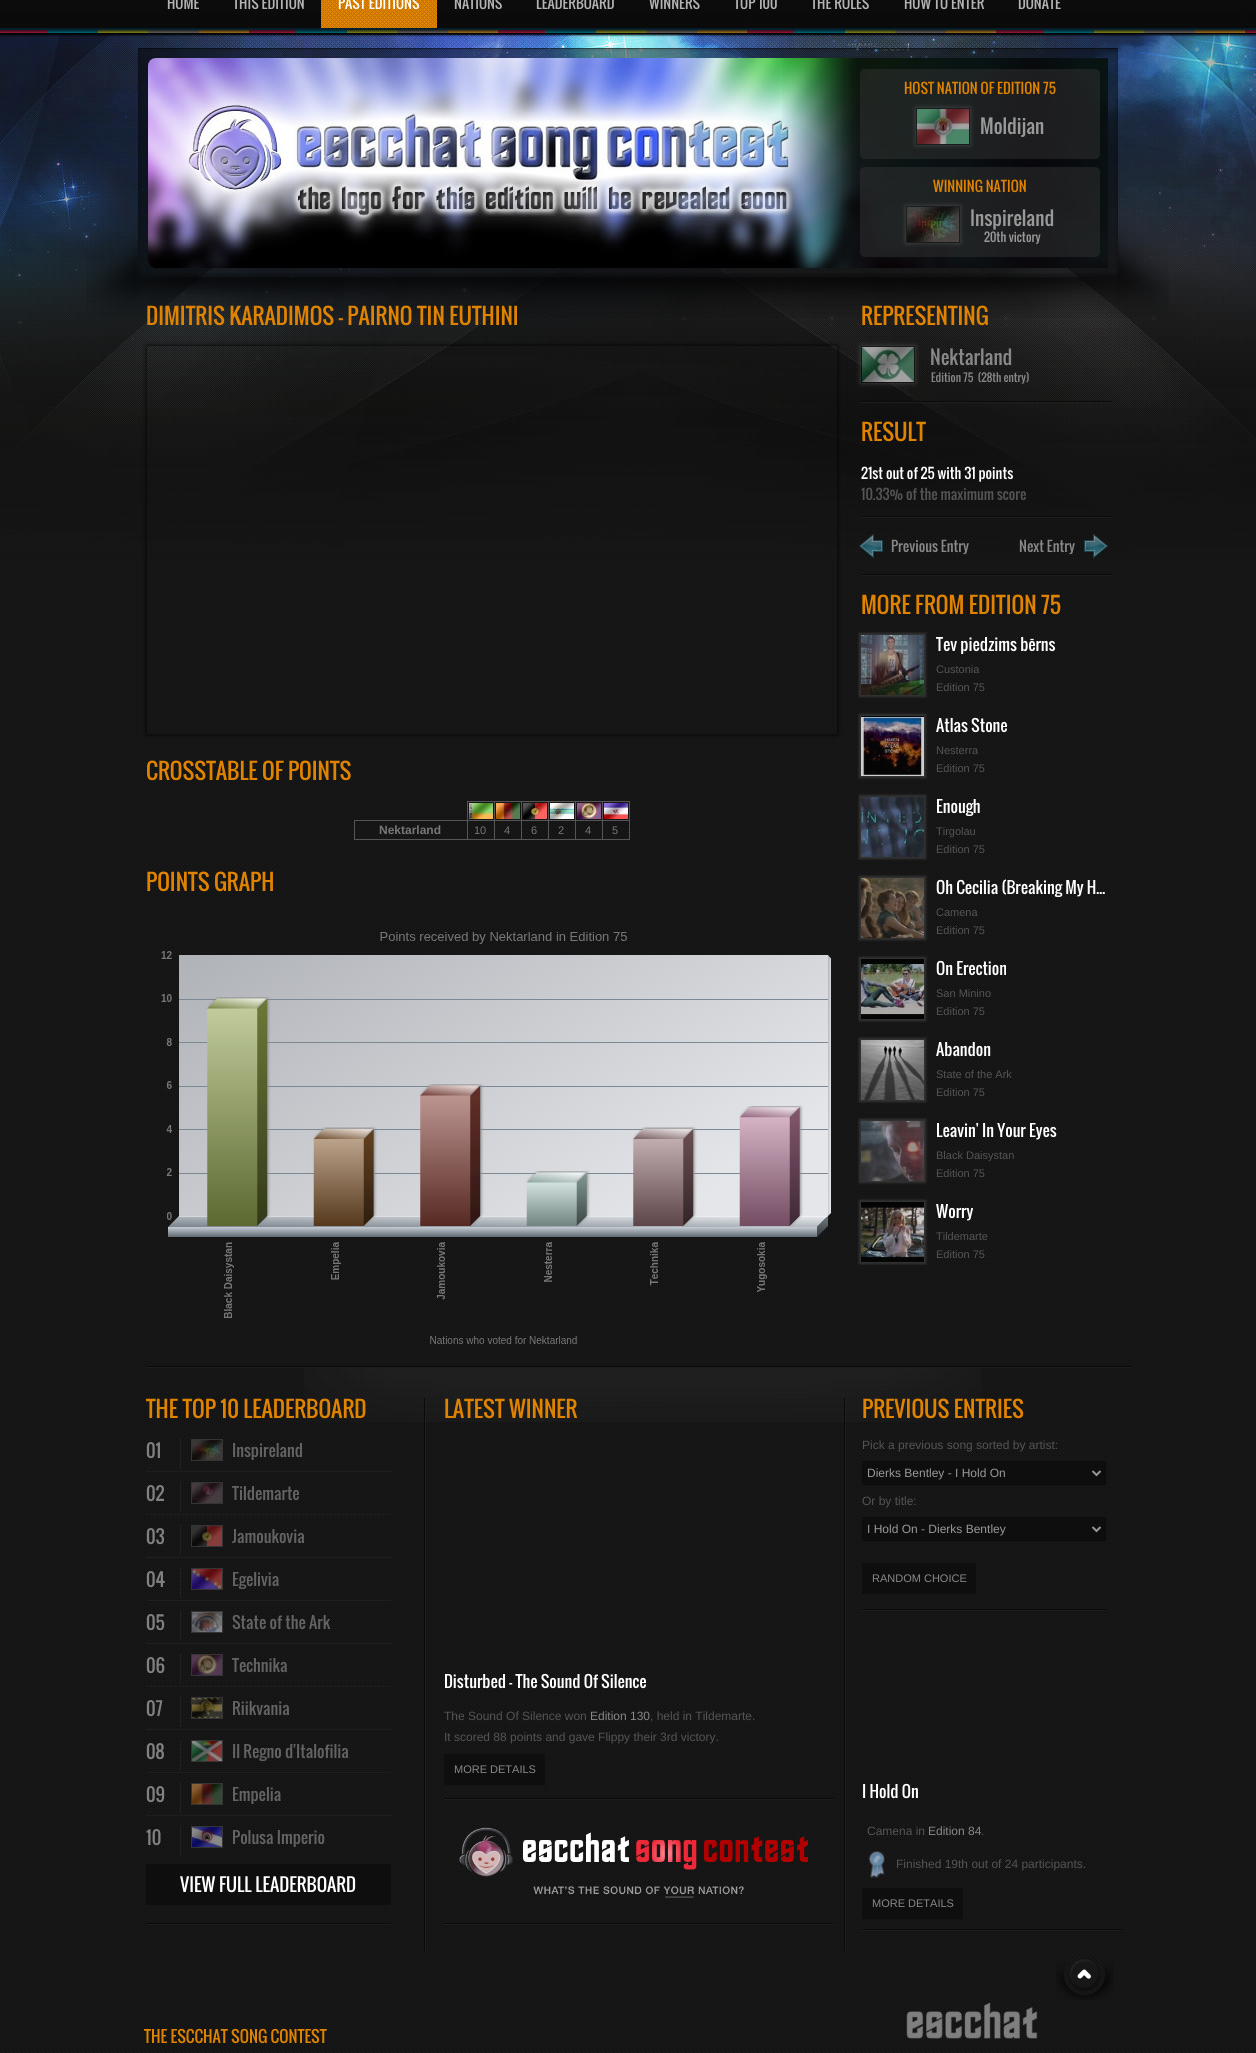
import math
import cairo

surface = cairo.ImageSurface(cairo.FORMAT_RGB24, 1256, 2053)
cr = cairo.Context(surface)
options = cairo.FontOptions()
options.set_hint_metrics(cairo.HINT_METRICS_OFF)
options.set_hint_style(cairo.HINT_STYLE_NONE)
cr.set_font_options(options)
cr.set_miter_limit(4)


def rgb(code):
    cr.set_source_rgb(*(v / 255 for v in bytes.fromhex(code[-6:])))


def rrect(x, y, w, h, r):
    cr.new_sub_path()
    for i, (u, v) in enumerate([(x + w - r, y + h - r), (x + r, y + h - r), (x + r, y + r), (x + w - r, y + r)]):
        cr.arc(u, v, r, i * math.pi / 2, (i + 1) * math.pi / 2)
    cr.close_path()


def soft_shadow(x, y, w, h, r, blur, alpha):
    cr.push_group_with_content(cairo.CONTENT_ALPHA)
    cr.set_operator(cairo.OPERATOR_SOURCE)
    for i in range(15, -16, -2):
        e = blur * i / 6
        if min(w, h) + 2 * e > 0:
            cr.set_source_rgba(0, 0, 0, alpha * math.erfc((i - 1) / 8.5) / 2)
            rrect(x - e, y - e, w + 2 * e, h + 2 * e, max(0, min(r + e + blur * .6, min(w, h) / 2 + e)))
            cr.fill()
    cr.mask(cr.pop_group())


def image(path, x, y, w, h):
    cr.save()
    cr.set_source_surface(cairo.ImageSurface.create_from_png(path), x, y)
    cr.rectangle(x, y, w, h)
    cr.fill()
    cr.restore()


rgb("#191919")
cr.paint()
image("img/1.png", 0, 557, 1256, 1496)
image("img/2.png", 0, 33, 1256, 524)
rgb("#000000")
soft_shadow(0, -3, 1256, 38, 0, 1, 1)
image("img/3.png", 0, 0, 1256, 33)
rgb("#df8300")
cr.rectangle(321, 0, 116, 28)
cr.fill()
image("img/4.png", 321, 0, 116, 28)
image("img/5.png", 86, 48, 1083, 270)
image("img/6.png", 148, 58, 960, 210)
image("img/7.png", 782, 58, 326, 210)
cr.set_source_rgba(0.196, 0.196, 0.196, 0.5)
rrect(860, 69, 240, 90, 5)
cr.fill()
cr.save()
cr.set_fill_rule(cairo.FILL_RULE_EVEN_ODD)
cr.new_path()
cr.move_to(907, 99)
cr.line_to(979, 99)
cr.line_to(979, 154)
cr.line_to(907, 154)
cr.close_path()
cr.move_to(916, 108)
cr.line_to(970, 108)
cr.line_to(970, 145)
cr.line_to(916, 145)
cr.close_path()
cr.clip()
rgb("#666666")
soft_shadow(916, 108, 54, 37, 0, 2.5, 0.6)
cr.restore()
cr.rectangle(916.5, 108.5, 53, 36)
cr.set_source_rgba(0, 0, 0, 0.12)
cr.set_line_width(1)
cr.stroke()
image("img/8.png", 917, 109, 52, 35)
cr.set_source_rgba(0.196, 0.196, 0.196, 0.5)
rrect(860, 167, 240, 90, 5)
cr.fill()
cr.save()
cr.set_fill_rule(cairo.FILL_RULE_EVEN_ODD)
cr.new_path()
cr.move_to(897, 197)
cr.line_to(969, 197)
cr.line_to(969, 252)
cr.line_to(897, 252)
cr.close_path()
cr.move_to(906, 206)
cr.line_to(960, 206)
cr.line_to(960, 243)
cr.line_to(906, 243)
cr.close_path()
cr.clip()
rgb("#666666")
soft_shadow(906, 206, 54, 37, 0, 2.5, 0.6)
cr.restore()
cr.rectangle(906.5, 206.5, 53, 36)
cr.set_source_rgba(0, 0, 0, 0.12)
cr.stroke()
image("img/9.png", 907, 207, 52, 35)
image("img/10.png", 146, 1366, 985, 2)
cr.save()
cr.set_fill_rule(cairo.FILL_RULE_EVEN_ODD)
cr.new_path()
cr.move_to(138, 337)
cr.line_to(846, 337)
cr.line_to(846, 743)
cr.line_to(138, 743)
cr.close_path()
cr.move_to(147, 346)
cr.line_to(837, 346)
cr.line_to(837, 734)
cr.line_to(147, 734)
cr.close_path()
cr.clip()
rgb("#000000")
soft_shadow(147, 346, 690, 388, 0, 2.5, 1)
cr.restore()
for x, y, w, h, color in [
    (602, 801, 28, 1, "#555555"),
    (602, 820, 28, 1, "#555555"),
    (629, 820, 1, 20, "#555555"),
    (602, 839, 28, 1, "#555555"),
    (602, 820, 1, 20, "#555555"),
    (575, 820, 28, 1, "#555555"),
    (602, 801, 1, 20, "#555555"),
    (575, 801, 28, 1, "#555555"),
    (575, 839, 28, 1, "#555555"),
    (575, 820, 1, 20, "#555555"),
    (548, 820, 28, 1, "#555555"),
    (575, 801, 1, 20, "#555555"),
    (548, 801, 28, 1, "#555555"),
    (548, 839, 28, 1, "#555555"),
    (548, 820, 1, 20, "#555555"),
    (521, 820, 28, 1, "#555555"),
    (548, 801, 1, 20, "#555555"),
    (521, 801, 28, 1, "#555555"),
    (521, 839, 28, 1, "#555555"),
    (521, 820, 1, 20, "#555555"),
    (494, 820, 28, 1, "#555555"),
    (521, 801, 1, 20, "#555555"),
    (494, 801, 28, 1, "#555555"),
    (494, 839, 28, 1, "#555555"),
    (494, 820, 1, 20, "#555555"),
    (467, 820, 28, 1, "#555555"),
    (494, 801, 1, 20, "#555555"),
    (467, 801, 28, 1, "#555555"),
    (467, 839, 28, 1, "#555555"),
    (467, 820, 1, 20, "#555555"),
    (354, 820, 114, 1, "#555555"),
    (467, 801, 1, 20, "#555555"),
]:
    rgb(color)
    cr.rectangle(x, y, w, h)
    cr.fill()
image("img/11.png", 469, 803, 24, 16)
image("img/12.png", 496, 803, 24, 16)
image("img/13.png", 523, 803, 24, 16)
image("img/14.png", 550, 803, 24, 16)
image("img/15.png", 577, 803, 24, 16)
cr.rectangle(629, 801, 1, 20)
cr.fill()
image("img/16.png", 604, 803, 24, 16)
cr.rectangle(354, 839, 114, 1)
cr.fill()
cr.rectangle(354, 820, 1, 20)
cr.fill()
image("img/17.png", 161, 932, 671, 412)
cr.save()
cr.set_fill_rule(cairo.FILL_RULE_EVEN_ODD)
cr.new_path()
cr.move_to(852, 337)
cr.line_to(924, 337)
cr.line_to(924, 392)
cr.line_to(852, 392)
cr.close_path()
cr.move_to(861, 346)
cr.line_to(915, 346)
cr.line_to(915, 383)
cr.line_to(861, 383)
cr.close_path()
cr.clip()
rgb("#666666")
soft_shadow(861, 346, 54, 37, 0, 2.5, 0.6)
cr.restore()
cr.rectangle(861.5, 346.5, 53, 36)
cr.set_source_rgba(0, 0, 0, 0.12)
cr.stroke()
image("img/18.png", 862, 347, 52, 35)
image("img/19.png", 861, 401, 250, 2)
image("img/19.png", 861, 516, 250, 2)
image("img/20.png", 859, 534, 24, 24)
image("img/21.png", 1084, 534, 24, 24)
image("img/19.png", 861, 574, 250, 2)
cr.save()
cr.set_fill_rule(cairo.FILL_RULE_EVEN_ODD)
cr.new_path()
cr.move_to(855, 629)
cr.line_to(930, 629)
cr.line_to(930, 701)
cr.line_to(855, 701)
cr.close_path()
cr.move_to(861, 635)
cr.line_to(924, 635)
cr.line_to(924, 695)
cr.line_to(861, 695)
cr.close_path()
cr.clip()
rgb("#333333")
soft_shadow(859, 633, 67, 64, 0, 1, 1)
cr.restore()
image("img/22.png", 861, 635, 63, 60)
cr.save()
cr.set_fill_rule(cairo.FILL_RULE_EVEN_ODD)
cr.new_path()
cr.move_to(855, 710)
cr.line_to(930, 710)
cr.line_to(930, 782)
cr.line_to(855, 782)
cr.close_path()
cr.move_to(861, 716)
cr.line_to(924, 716)
cr.line_to(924, 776)
cr.line_to(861, 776)
cr.close_path()
cr.clip()
rgb("#333333")
soft_shadow(859, 714, 67, 64, 0, 1, 1)
cr.restore()
image("img/23.png", 861, 716, 63, 60)
cr.save()
cr.set_fill_rule(cairo.FILL_RULE_EVEN_ODD)
cr.new_path()
cr.move_to(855, 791)
cr.line_to(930, 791)
cr.line_to(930, 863)
cr.line_to(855, 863)
cr.close_path()
cr.move_to(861, 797)
cr.line_to(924, 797)
cr.line_to(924, 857)
cr.line_to(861, 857)
cr.close_path()
cr.clip()
rgb("#333333")
soft_shadow(859, 795, 67, 64, 0, 1, 1)
cr.restore()
image("img/24.png", 861, 797, 63, 60)
cr.save()
cr.set_fill_rule(cairo.FILL_RULE_EVEN_ODD)
cr.new_path()
cr.move_to(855, 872)
cr.line_to(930, 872)
cr.line_to(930, 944)
cr.line_to(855, 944)
cr.close_path()
cr.move_to(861, 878)
cr.line_to(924, 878)
cr.line_to(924, 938)
cr.line_to(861, 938)
cr.close_path()
cr.clip()
rgb("#333333")
soft_shadow(859, 876, 67, 64, 0, 1, 1)
cr.restore()
image("img/25.png", 861, 878, 63, 60)
cr.save()
cr.set_fill_rule(cairo.FILL_RULE_EVEN_ODD)
cr.new_path()
cr.move_to(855, 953)
cr.line_to(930, 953)
cr.line_to(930, 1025)
cr.line_to(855, 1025)
cr.close_path()
cr.move_to(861, 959)
cr.line_to(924, 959)
cr.line_to(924, 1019)
cr.line_to(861, 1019)
cr.close_path()
cr.clip()
rgb("#333333")
soft_shadow(859, 957, 67, 64, 0, 1, 1)
cr.restore()
image("img/26.png", 861, 959, 63, 60)
cr.save()
cr.set_fill_rule(cairo.FILL_RULE_EVEN_ODD)
cr.new_path()
cr.move_to(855, 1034)
cr.line_to(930, 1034)
cr.line_to(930, 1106)
cr.line_to(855, 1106)
cr.close_path()
cr.move_to(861, 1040)
cr.line_to(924, 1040)
cr.line_to(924, 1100)
cr.line_to(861, 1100)
cr.close_path()
cr.clip()
rgb("#333333")
soft_shadow(859, 1038, 67, 64, 0, 1, 1)
cr.restore()
image("img/27.png", 861, 1040, 63, 60)
cr.save()
cr.set_fill_rule(cairo.FILL_RULE_EVEN_ODD)
cr.new_path()
cr.move_to(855, 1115)
cr.line_to(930, 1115)
cr.line_to(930, 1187)
cr.line_to(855, 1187)
cr.close_path()
cr.move_to(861, 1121)
cr.line_to(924, 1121)
cr.line_to(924, 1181)
cr.line_to(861, 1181)
cr.close_path()
cr.clip()
rgb("#333333")
soft_shadow(859, 1119, 67, 64, 0, 1, 1)
cr.restore()
image("img/28.png", 861, 1121, 63, 60)
cr.save()
cr.set_fill_rule(cairo.FILL_RULE_EVEN_ODD)
cr.new_path()
cr.move_to(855, 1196)
cr.line_to(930, 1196)
cr.line_to(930, 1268)
cr.line_to(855, 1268)
cr.close_path()
cr.move_to(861, 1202)
cr.line_to(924, 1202)
cr.line_to(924, 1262)
cr.line_to(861, 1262)
cr.close_path()
cr.clip()
rgb("#333333")
soft_shadow(859, 1200, 67, 64, 0, 1, 1)
cr.restore()
image("img/29.png", 861, 1202, 63, 60)
image("img/30.png", 304, 1368, 677, 54)
image("img/31.png", 424, 1398, 422, 553)
image("img/32.png", 146, 1923, 245, 2)
image("img/33.png", 180, 1439, 1, 30)
cr.rectangle(191.5, 1439.5, 31, 21)
cr.set_source_rgba(0.333, 0.333, 0.333, 0.5)
cr.stroke()
image("img/34.png", 192, 1440, 30, 20)
rgb("#1e1e1e")
cr.rectangle(146, 1471, 245, 1)
cr.fill()
image("img/35.png", 180, 1482, 1, 30)
cr.rectangle(191.5, 1482.5, 31, 21)
cr.set_source_rgba(0.333, 0.333, 0.333, 0.5)
cr.stroke()
image("img/36.png", 192, 1483, 30, 20)
rgb("#1e1e1e")
cr.rectangle(146, 1514, 245, 1)
cr.fill()
image("img/33.png", 180, 1525, 1, 30)
cr.rectangle(191.5, 1525.5, 31, 21)
cr.set_source_rgba(0.333, 0.333, 0.333, 0.5)
cr.stroke()
image("img/37.png", 192, 1526, 30, 20)
rgb("#1e1e1e")
cr.rectangle(146, 1557, 245, 1)
cr.fill()
image("img/35.png", 180, 1568, 1, 30)
cr.rectangle(191.5, 1568.5, 31, 21)
cr.set_source_rgba(0.333, 0.333, 0.333, 0.5)
cr.stroke()
image("img/38.png", 192, 1569, 30, 20)
rgb("#1e1e1e")
cr.rectangle(146, 1600, 245, 1)
cr.fill()
image("img/33.png", 180, 1611, 1, 30)
cr.rectangle(191.5, 1611.5, 31, 21)
cr.set_source_rgba(0.333, 0.333, 0.333, 0.5)
cr.stroke()
image("img/39.png", 192, 1612, 30, 20)
rgb("#1e1e1e")
cr.rectangle(146, 1643, 245, 1)
cr.fill()
image("img/35.png", 180, 1654, 1, 30)
cr.rectangle(191.5, 1654.5, 31, 21)
cr.set_source_rgba(0.333, 0.333, 0.333, 0.5)
cr.stroke()
image("img/40.png", 192, 1655, 30, 20)
rgb("#1e1e1e")
cr.rectangle(146, 1686, 245, 1)
cr.fill()
image("img/33.png", 180, 1697, 1, 30)
cr.rectangle(191.5, 1697.5, 31, 21)
cr.set_source_rgba(0.333, 0.333, 0.333, 0.5)
cr.stroke()
image("img/41.png", 192, 1698, 30, 20)
rgb("#1e1e1e")
cr.rectangle(146, 1729, 245, 1)
cr.fill()
image("img/35.png", 180, 1740, 1, 30)
cr.rectangle(191.5, 1740.5, 31, 21)
cr.set_source_rgba(0.333, 0.333, 0.333, 0.5)
cr.stroke()
image("img/42.png", 192, 1741, 30, 20)
rgb("#1e1e1e")
cr.rectangle(146, 1772, 245, 1)
cr.fill()
image("img/33.png", 180, 1783, 1, 30)
cr.rectangle(191.5, 1783.5, 31, 21)
cr.set_source_rgba(0.333, 0.333, 0.333, 0.5)
cr.stroke()
image("img/43.png", 192, 1784, 30, 20)
rgb("#1e1e1e")
cr.rectangle(146, 1815, 245, 1)
cr.fill()
image("img/35.png", 180, 1826, 1, 30)
cr.rectangle(191.5, 1826.5, 31, 21)
cr.set_source_rgba(0.333, 0.333, 0.333, 0.5)
cr.stroke()
image("img/44.png", 192, 1827, 30, 20)
cr.set_source_rgba(0.051, 0.051, 0.051, 0.82)
cr.rectangle(146, 1864, 245, 41)
cr.fill()
image("img/45.png", 444, 1923, 390, 2)
image("img/45.png", 444, 1798, 390, 2)
cr.rectangle(444, 1754, 101, 31)
cr.fill()
image("img/46.png", 459, 1827, 349, 50)
image("img/47.png", 533, 1886, 211, 12)
rgb("#0e0e0e")
rrect(862.5, 1461.5, 243, 23, 1.5)
cr.fill_preserve()
rgb("#0b0b0b")
cr.stroke()
cr.new_path()
cr.move_to(1092.5, 1471)
cr.line_to(1096.5, 1475)
cr.line_to(1100.5, 1471)
rgb("#999999")
cr.set_line_width(2)
cr.stroke()
rgb("#0e0e0e")
rrect(862.5, 1517.5, 243, 23, 1.5)
cr.fill_preserve()
rgb("#0b0b0b")
cr.set_line_width(1)
cr.stroke()
cr.new_path()
cr.move_to(1092.5, 1527)
cr.line_to(1096.5, 1531)
cr.line_to(1100.5, 1527)
rgb("#999999")
cr.set_line_width(2)
cr.stroke()
cr.set_source_rgba(0.051, 0.051, 0.051, 0.82)
cr.rectangle(862, 1563, 114, 31)
cr.fill()
image("img/32.png", 862, 1609, 245, 2)
image("img/48.png", 862, 1929, 260, 2)
image("img/49.png", 868, 1851, 17, 27)
cr.rectangle(862, 1888, 101, 31)
cr.fill()
image("img/50.png", 1056, 1958, 58, 42)
image("img/51.png", 906, 2002, 132, 37)
cr.select_font_face("Oswald")
cr.set_font_size(14)
rgb("#b3b3b3")
cr.move_to(167, 9)
cr.show_text("HOME")
cr.move_to(233, 9)
cr.show_text("THIS EDITION")
rgb("#ffffff")
cr.move_to(338, 9)
cr.show_text("PAST EDITIONS")
rgb("#b3b3b3")
for x, y, s in [
    (454, 9, "NATIONS"),
    (536, 9, "LEADERBOARD"),
    (649, 9, "WINNERS"),
    (734, 9, "TOP 100"),
    (811, 9, "THE RULES"),
    (904, 9, "HOW TO ENTER"),
    (1018, 9, "DONATE"),
]:
    cr.move_to(x, y)
    cr.show_text(s)
rgb("#df8300")
cr.move_to(904, 94)
cr.show_text("HOST NATION OF EDITION 75")
cr.set_font_size(19)
rgb("#999999")
cr.move_to(980, 134)
cr.show_text("Moldijan")
cr.set_font_size(14)
rgb("#df8300")
cr.move_to(933, 192)
cr.show_text("WINNING NATION")
cr.set_font_size(19)
rgb("#999999")
cr.move_to(970, 226)
cr.show_text("Inspireland")
cr.set_font_size(12)
cr.move_to(984, 242)
cr.show_text("20th victory")
cr.set_font_size(22)
rgb("#df8300")
cr.move_to(146, 325)
cr.show_text("DIMITRIS KARADIMOS - PAIRNO TIN EUTHINI")
cr.move_to(146, 780)
cr.show_text("CROSSTABLE OF POINTS")
cr.select_font_face("Liberation Sans", cairo.FONT_SLANT_NORMAL, cairo.FONT_WEIGHT_BOLD)
cr.set_font_size(12)
rgb("#777777")
cr.move_to(379, 834)
cr.show_text("Nektarland")
cr.select_font_face("Liberation Sans")
cr.set_font_size(11)
for x, y, s in [
    (474, 834, "10"),
    (504, 834, "4"),
    (531, 834, "6"),
    (558, 834, "2"),
    (585, 834, "4"),
    (612, 834, "5"),
]:
    cr.move_to(x, y)
    cr.show_text(s)
cr.select_font_face("Oswald")
cr.set_font_size(22)
rgb("#df8300")
cr.move_to(146, 891)
cr.show_text("POINTS GRAPH")
cr.move_to(861, 325)
cr.show_text("REPRESENTING")
cr.set_font_size(19)
rgb("#888888")
cr.move_to(930, 365)
cr.show_text("Nektarland")
cr.set_font_size(11)
cr.move_to(931, 382)
cr.show_text("Edition 75  (28th entry)")
cr.set_font_size(22)
rgb("#df8300")
cr.move_to(861, 441)
cr.show_text("RESULT")
cr.set_font_size(14)
rgb("#ffffff")
cr.move_to(861, 479)
cr.show_text("21st out of 25 with 31 points")
rgb("#545454")
cr.move_to(861, 500)
cr.show_text("10.33% of the maximum score")
rgb("#888888")
cr.move_to(891, 552)
cr.show_text("Previous Entry")
cr.move_to(1019, 552)
cr.show_text("Next Entry")
cr.set_font_size(22)
rgb("#df8300")
cr.move_to(861, 614)
cr.show_text("MORE FROM EDITION 75")
cr.set_font_size(16)
rgb("#ffffff")
cr.move_to(936, 651)
cr.show_text("Tev piedzims bērns")
cr.select_font_face("Liberation Sans")
cr.set_font_size(11)
rgb("#545454")
cr.move_to(936, 673)
cr.show_text("Custonia")
cr.move_to(936, 691)
cr.show_text("Edition 75")
cr.select_font_face("Oswald")
cr.set_font_size(16)
rgb("#ffffff")
cr.move_to(936, 732)
cr.show_text("Atlas Stone")
cr.select_font_face("Liberation Sans")
cr.set_font_size(11)
rgb("#545454")
cr.move_to(936, 754)
cr.show_text("Nesterra")
cr.move_to(936, 772)
cr.show_text("Edition 75")
cr.select_font_face("Oswald")
cr.set_font_size(16)
rgb("#ffffff")
cr.move_to(936, 813)
cr.show_text("Enough")
cr.select_font_face("Liberation Sans")
cr.set_font_size(11)
rgb("#545454")
cr.move_to(936, 835)
cr.show_text("Tirgolau")
cr.move_to(936, 853)
cr.show_text("Edition 75")
cr.select_font_face("Oswald")
cr.set_font_size(16)
rgb("#ffffff")
cr.move_to(936, 894)
cr.show_text("Oh Cecilia (Breaking My H...")
cr.select_font_face("Liberation Sans")
cr.set_font_size(11)
rgb("#545454")
cr.move_to(936, 916)
cr.show_text("Camena")
cr.move_to(936, 934)
cr.show_text("Edition 75")
cr.select_font_face("Oswald")
cr.set_font_size(16)
rgb("#ffffff")
cr.move_to(936, 975)
cr.show_text("On Erection")
cr.select_font_face("Liberation Sans")
cr.set_font_size(11)
rgb("#545454")
cr.move_to(936, 997)
cr.show_text("San Minino")
cr.move_to(936, 1015)
cr.show_text("Edition 75")
cr.select_font_face("Oswald")
cr.set_font_size(16)
rgb("#ffffff")
cr.move_to(936, 1056)
cr.show_text("Abandon")
cr.select_font_face("Liberation Sans")
cr.set_font_size(11)
rgb("#545454")
cr.move_to(936, 1078)
cr.show_text("State of the Ark")
cr.move_to(936, 1096)
cr.show_text("Edition 75")
cr.select_font_face("Oswald")
cr.set_font_size(16)
rgb("#ffffff")
cr.move_to(936, 1137)
cr.show_text("Leavin' In Your Eyes")
cr.select_font_face("Liberation Sans")
cr.set_font_size(11)
rgb("#545454")
cr.move_to(936, 1159)
cr.show_text("Black Daisystan")
cr.move_to(936, 1177)
cr.show_text("Edition 75")
cr.select_font_face("Oswald")
cr.set_font_size(16)
rgb("#ffffff")
cr.move_to(936, 1218)
cr.show_text("Worry")
cr.select_font_face("Liberation Sans")
cr.set_font_size(11)
rgb("#545454")
cr.move_to(936, 1240)
cr.show_text("Tildemarte")
cr.move_to(936, 1258)
cr.show_text("Edition 75")
cr.select_font_face("Oswald")
cr.set_font_size(22)
rgb("#df8300")
cr.move_to(146, 1418)
cr.show_text("THE TOP 10 LEADERBOARD")
cr.set_font_size(18)
rgb("#818181")
cr.move_to(146, 1458)
cr.show_text("01")
cr.set_font_size(16)
rgb("#646262")
cr.move_to(232, 1457)
cr.show_text("Inspireland")
cr.set_font_size(18)
rgb("#818181")
cr.move_to(146, 1501)
cr.show_text("02")
cr.set_font_size(16)
rgb("#646262")
cr.move_to(232, 1500)
cr.show_text("Tildemarte")
cr.set_font_size(18)
rgb("#818181")
cr.move_to(146, 1544)
cr.show_text("03")
cr.set_font_size(16)
rgb("#646262")
cr.move_to(232, 1543)
cr.show_text("Jamoukovia")
cr.set_font_size(18)
rgb("#818181")
cr.move_to(146, 1587)
cr.show_text("04")
cr.set_font_size(16)
rgb("#646262")
cr.move_to(232, 1586)
cr.show_text("Egelivia")
cr.set_font_size(18)
rgb("#818181")
cr.move_to(146, 1630)
cr.show_text("05")
cr.set_font_size(16)
rgb("#646262")
cr.move_to(232, 1629)
cr.show_text("State of the Ark")
cr.set_font_size(18)
rgb("#818181")
cr.move_to(146, 1673)
cr.show_text("06")
cr.set_font_size(16)
rgb("#646262")
cr.move_to(232, 1672)
cr.show_text("Technika")
cr.set_font_size(18)
rgb("#818181")
cr.move_to(146, 1716)
cr.show_text("07")
cr.set_font_size(16)
rgb("#646262")
cr.move_to(232, 1715)
cr.show_text("Riikvania")
cr.set_font_size(18)
rgb("#818181")
cr.move_to(146, 1759)
cr.show_text("08")
cr.set_font_size(16)
rgb("#646262")
cr.move_to(232, 1758)
cr.show_text("Il Regno d'Italofilia")
cr.set_font_size(18)
rgb("#818181")
cr.move_to(146, 1802)
cr.show_text("09")
cr.set_font_size(16)
rgb("#646262")
cr.move_to(232, 1801)
cr.show_text("Empelia")
cr.set_font_size(18)
rgb("#818181")
cr.move_to(146, 1845)
cr.show_text("10")
cr.set_font_size(16)
rgb("#646262")
cr.move_to(232, 1844)
cr.show_text("Polusa Imperio")
cr.set_font_size(18)
rgb("#ffffff")
cr.move_to(180, 1892)
cr.show_text("VIEW FULL LEADERBOARD")
cr.set_font_size(22)
rgb("#df8300")
cr.move_to(444, 1418)
cr.show_text("LATEST WINNER")
cr.set_font_size(16)
rgb("#ffffff")
cr.move_to(444, 1688)
cr.show_text("Disturbed - The Sound Of Silence")
cr.select_font_face("Liberation Sans")
cr.set_font_size(12)
rgb("#545454")
cr.move_to(444, 1720)
cr.show_text("The Sound Of Silence won")
rgb("#888888")
cr.move_to(590, 1720)
cr.show_text("Edition 130")
rgb("#545454")
cr.move_to(650, 1720)
cr.show_text(", held in Tildemarte.")
cr.move_to(444, 1741)
cr.show_text("It scored 88 points and gave Flippy their 3rd victory.")
cr.set_font_size(11)
rgb("#888888")
cr.move_to(454, 1773)
cr.show_text("MORE DETAILS")
cr.select_font_face("Oswald")
cr.set_font_size(22)
rgb("#df8300")
cr.move_to(862, 1418)
cr.show_text("PREVIOUS ENTRIES")
cr.select_font_face("Liberation Sans")
cr.set_font_size(12)
rgb("#545454")
cr.move_to(862, 1449)
cr.show_text("Pick a previous song sorted by artist:")
rgb("#999999")
cr.move_to(867, 1477)
cr.show_text("Dierks Bentley - I Hold On")
rgb("#545454")
cr.move_to(862, 1505)
cr.show_text("Or by title:")
rgb("#999999")
cr.move_to(867, 1533)
cr.show_text("I Hold On - Dierks Bentley")
cr.set_font_size(11)
rgb("#888888")
cr.move_to(872, 1582)
cr.show_text("RANDOM CHOICE")
cr.select_font_face("Oswald")
cr.set_font_size(16)
rgb("#ffffff")
cr.move_to(862, 1798)
cr.show_text("I Hold On")
cr.select_font_face("Liberation Sans")
cr.set_font_size(12)
rgb("#545454")
cr.move_to(867, 1835)
cr.show_text("Camena in")
rgb("#888888")
cr.move_to(928, 1835)
cr.show_text("Edition 84")
rgb("#545454")
cr.move_to(981, 1835)
cr.show_text(".")
cr.move_to(896, 1868)
cr.show_text("Finished 19th out of 24 participants.")
cr.set_font_size(11)
rgb("#888888")
cr.move_to(872, 1907)
cr.show_text("MORE DETAILS")
cr.select_font_face("Oswald")
cr.set_font_size(16)
rgb("#df8300")
cr.move_to(144, 2043)
cr.show_text("THE ESCCHAT SONG CONTEST")
surface.write_to_png("page.png")
